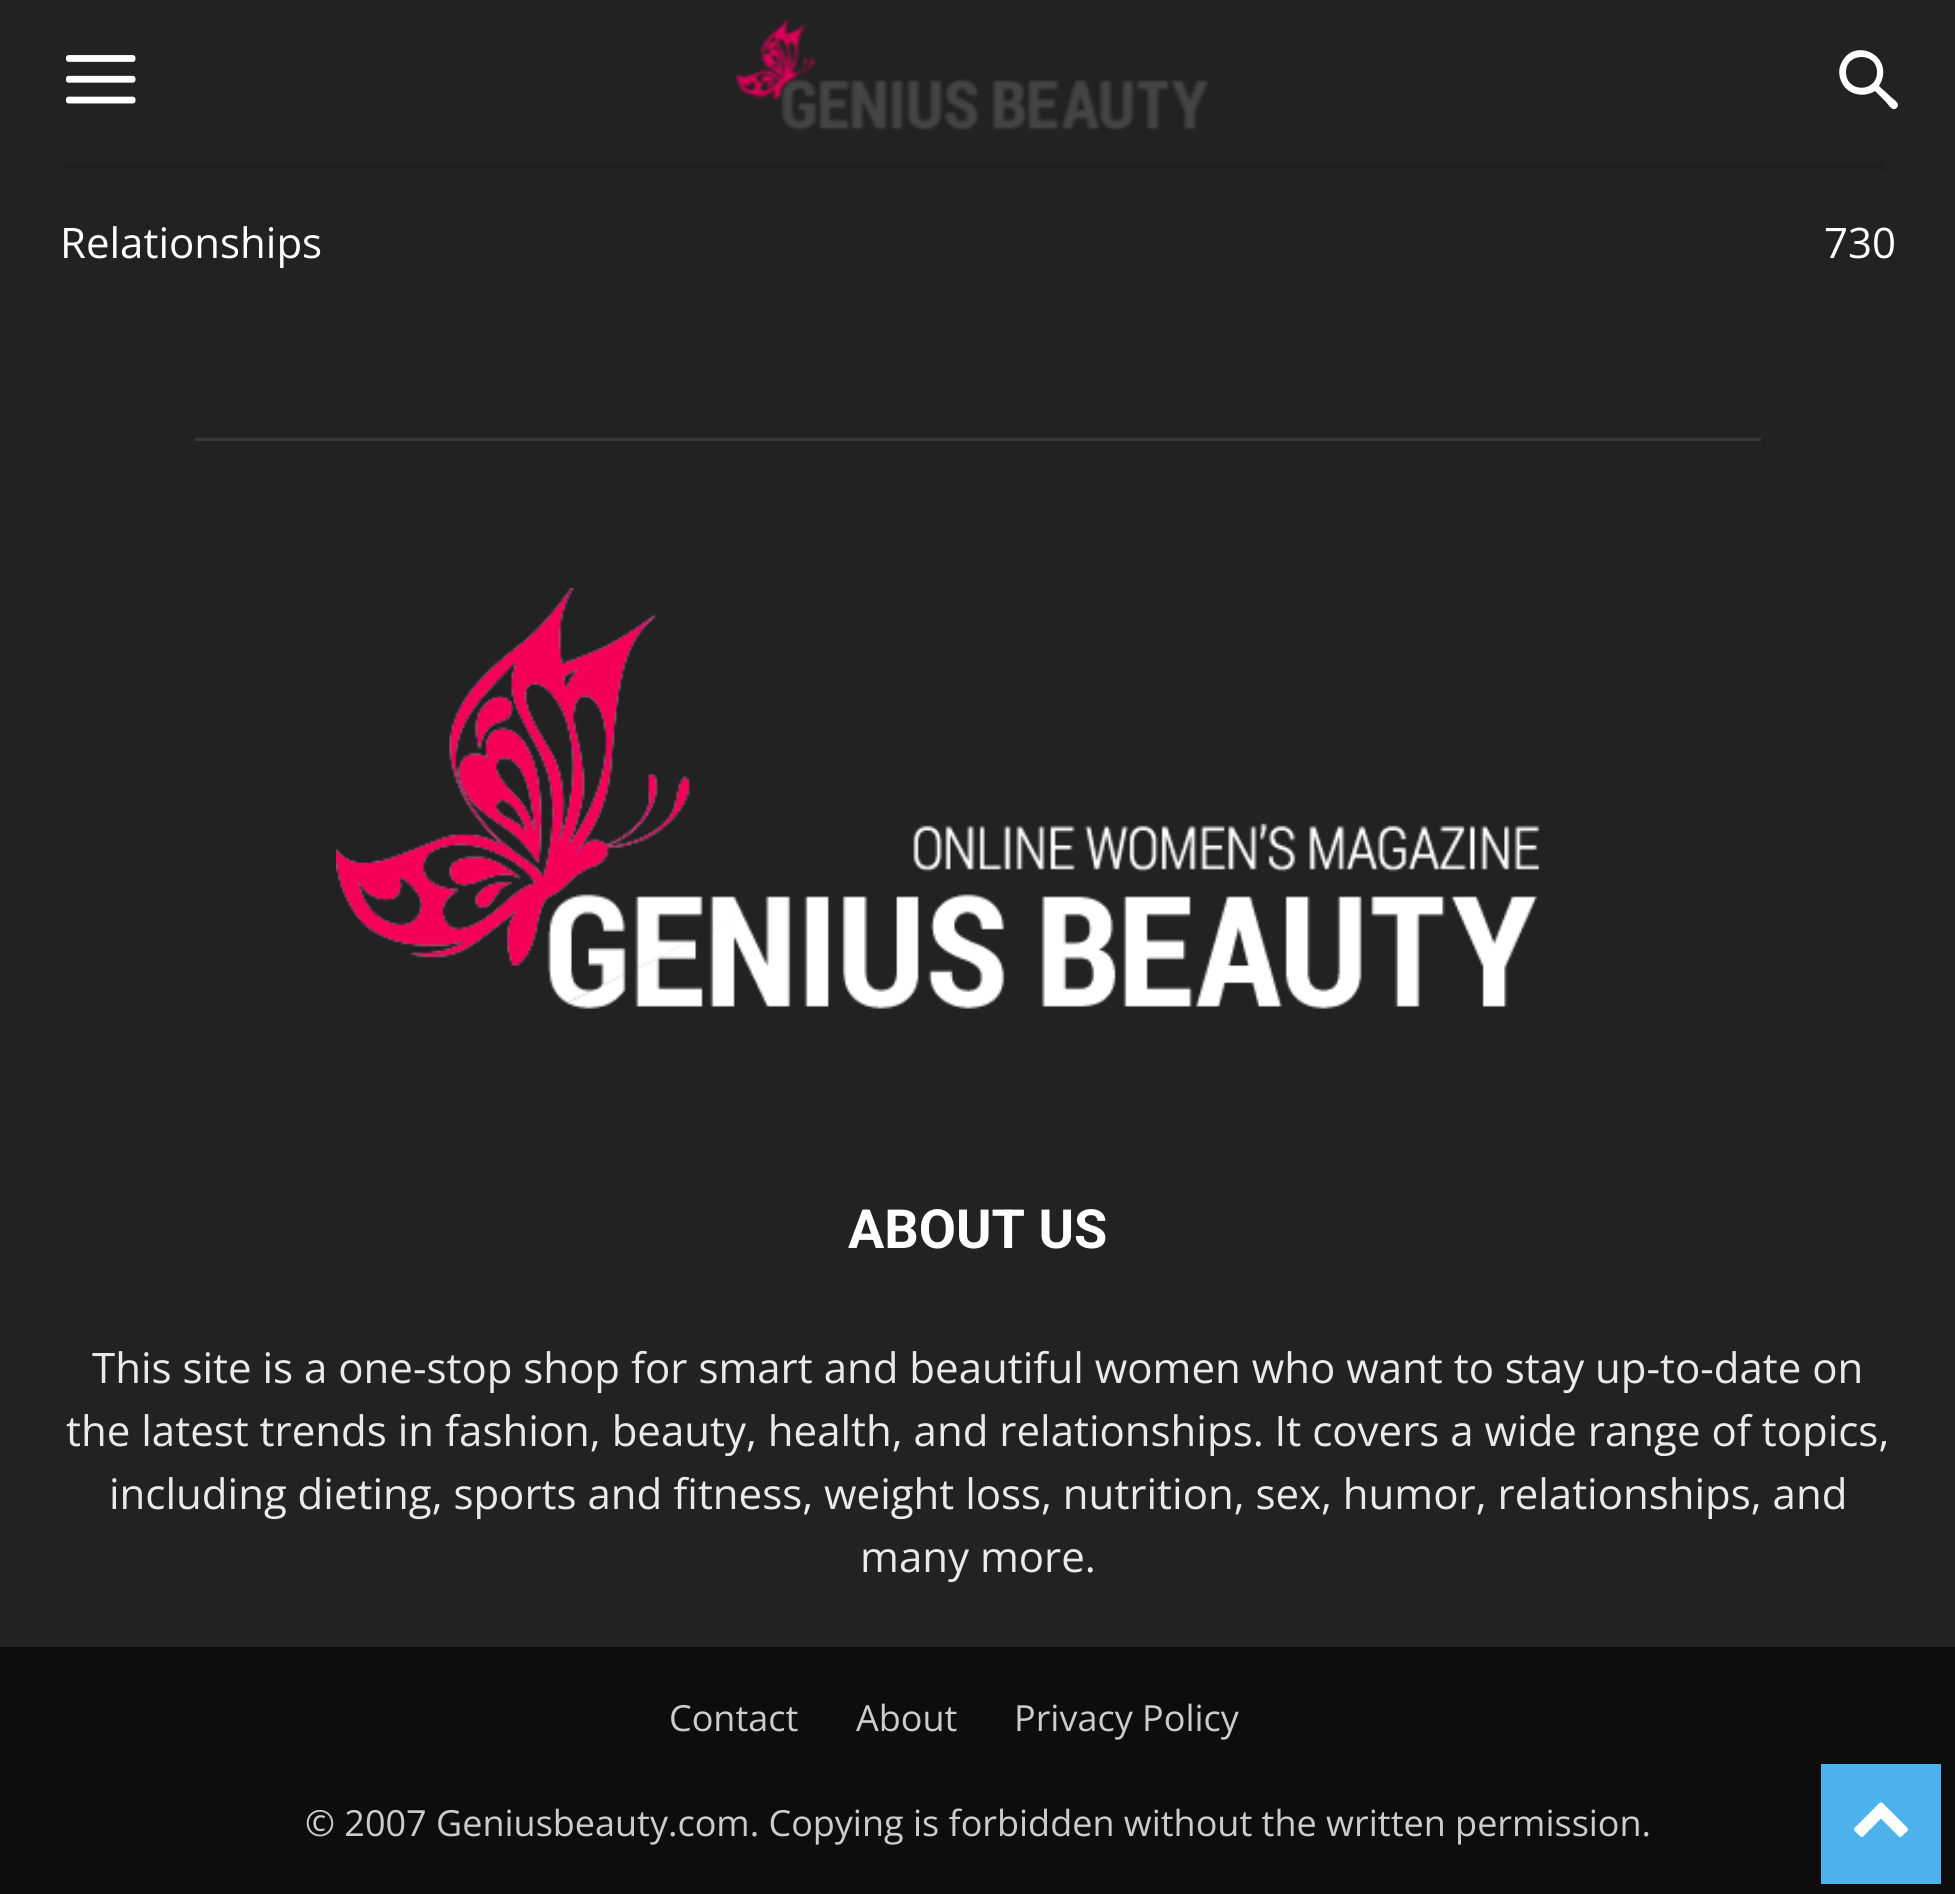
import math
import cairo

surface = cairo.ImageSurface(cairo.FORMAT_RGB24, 1955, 1894)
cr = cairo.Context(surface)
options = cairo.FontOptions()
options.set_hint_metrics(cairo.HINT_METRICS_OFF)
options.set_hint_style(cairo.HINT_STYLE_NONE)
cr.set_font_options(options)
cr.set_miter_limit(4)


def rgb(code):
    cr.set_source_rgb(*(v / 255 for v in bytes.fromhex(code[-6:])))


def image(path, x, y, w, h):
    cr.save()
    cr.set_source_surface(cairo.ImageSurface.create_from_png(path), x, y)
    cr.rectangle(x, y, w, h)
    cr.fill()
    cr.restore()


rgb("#0d0d0d")
cr.paint()
rgb("#222222")
cr.rectangle(0, 0, 1955, 1647)
cr.fill()
image("img/1.png", 66, 55, 70, 49)
image("img/2.png", 735, 17, 474, 114)
rgb("#ffffff")
cr.new_path()
cr.move_to(1877, 72)
cr.curve_to(1877, 93, 1846, 93, 1846, 72)
cr.curve_to(1846, 52, 1877, 52, 1877, 72)
cr.close_path()
cr.move_to(1898, 105)
cr.curve_to(1898, 102, 1893, 99, 1891, 97)
cr.line_to(1879, 86)
cr.curve_to(1897, 56, 1853, 35, 1841, 64)
cr.curve_to(1838, 70, 1839, 77, 1842, 83)
cr.curve_to(1848, 95, 1864, 98, 1875, 91)
cr.line_to(1886, 102)
cr.curve_to(1888, 104, 1891, 110, 1895, 109)
cr.curve_to(1896, 109, 1898, 107, 1898, 105)
cr.close_path()
cr.fill()
cr.set_source_rgba(0, 0, 0, 0.08)
cr.rectangle(64, 162, 1821, 7)
cr.fill()
rgb("#383838")
cr.rectangle(195, 438, 1566, 3)
cr.fill()
image("img/3.png", 336, 588, 1204, 421)
rgb("#4db2ec")
cr.rectangle(1821, 1764, 120, 120)
cr.fill()
image("img/4.png", 1854, 1802, 54, 35)
cr.select_font_face("Open Sans")
cr.set_font_size(42)
rgb("#ffffff")
cr.move_to(60, 258)
cr.show_text("Relationships")
cr.move_to(1824, 258)
cr.show_text("730")
cr.select_font_face("Roboto", cairo.FONT_SLANT_NORMAL, cairo.FONT_WEIGHT_BOLD)
cr.set_font_size(54)
cr.move_to(848, 1248)
cr.show_text("ABOUT US")
cr.select_font_face("Open Sans")
cr.set_font_size(42)
rgb("#eaeaea")
for x, y, s in [
    (92, 1383, "This site is a one-stop shop for smart and beautiful women who want to stay up-to-date on"),
    (66, 1446, "the latest trends in fashion, beauty, health, and relationships. It covers a wide range of topics,"),
    (109, 1509, "including dieting, sports and fitness, weight loss, nutrition, sex, humor, relationships, and"),
    (860, 1572, "many more."),
]:
    cr.move_to(x, y)
    cr.show_text(s)
cr.set_font_size(36)
rgb("#cccccc")
for x, y, s in [
    (669, 1731, "Contact"),
    (856, 1731, "About"),
    (1014, 1731, "Privacy Policy"),
    (305, 1836, "© 2007 Geniusbeauty.com. Copying is forbidden without the written permission."),
]:
    cr.move_to(x, y)
    cr.show_text(s)
surface.write_to_png("page.png")
